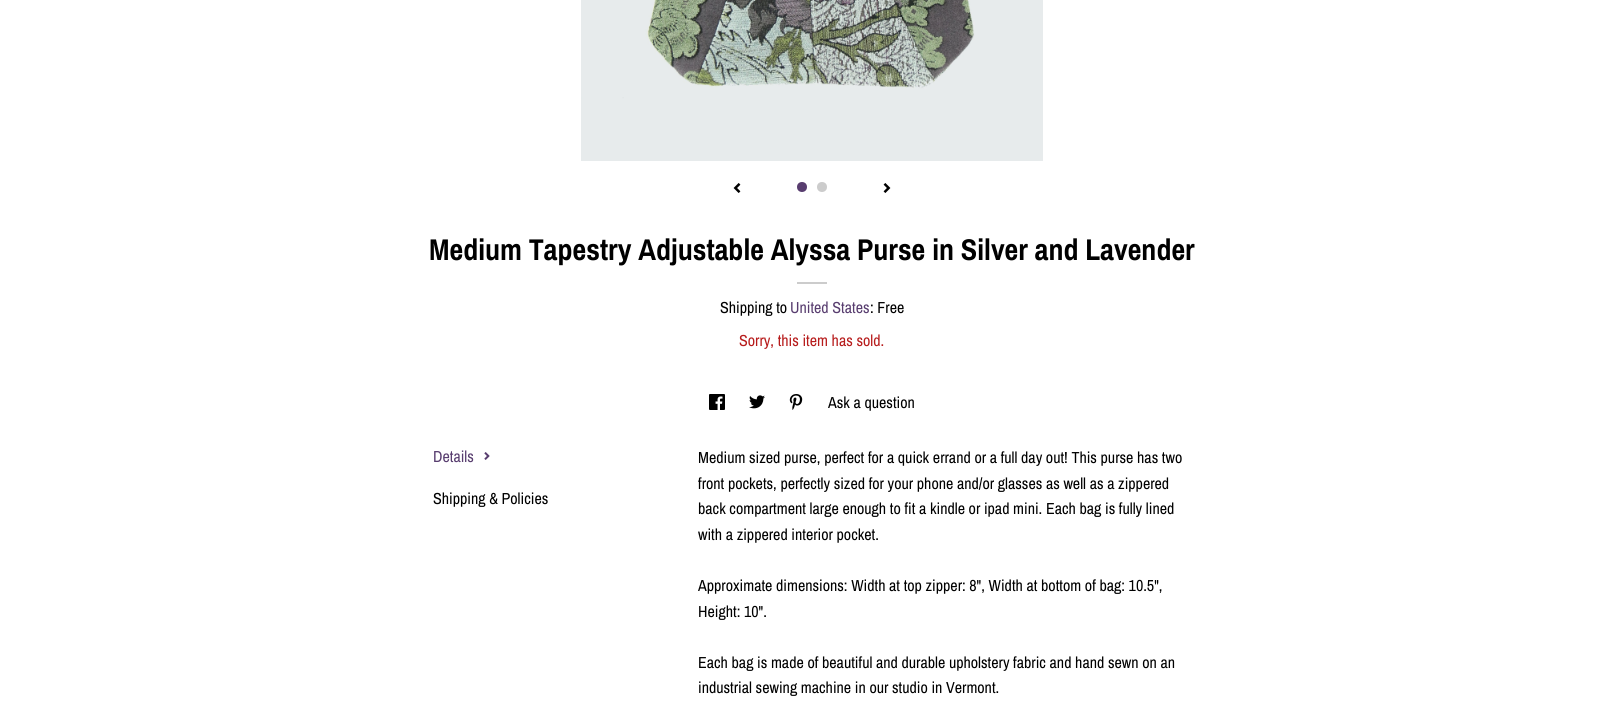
import math
import cairo

surface = cairo.ImageSurface(cairo.FORMAT_RGB24, 1624, 719)
cr = cairo.Context(surface)
options = cairo.FontOptions()
options.set_hint_metrics(cairo.HINT_METRICS_OFF)
options.set_hint_style(cairo.HINT_STYLE_NONE)
cr.set_font_options(options)
cr.set_miter_limit(4)


def rgb(code):
    cr.set_source_rgb(*(v / 255 for v in bytes.fromhex(code[-6:])))


def image(path, x, y, w, h):
    cr.save()
    cr.set_source_surface(cairo.ImageSurface.create_from_png(path), x, y)
    cr.rectangle(x, y, w, h)
    cr.fill()
    cr.restore()


rgb("#ffffff")
cr.paint()
image("img/1.png", 581, 0, 462, 161)
image("img/2.png", 733, 183, 8, 10)
rgb("#583d6f")
cr.arc(802, 187, 5, 0, 2 * math.pi)
cr.fill()
rgb("#cccccc")
cr.arc(822, 187, 5, 0, 2 * math.pi)
cr.fill()
image("img/3.png", 883, 183, 8, 10)
cr.rectangle(797, 282, 30, 2)
cr.fill()
image("img/4.png", 709, 394, 16, 16)
image("img/5.png", 749, 395, 16, 14)
image("img/6.png", 789, 394, 14, 16)
image("img/7.png", 484, 452, 6, 8)
cr.select_font_face("Archivo Narrow", cairo.FONT_SLANT_NORMAL, cairo.FONT_WEIGHT_BOLD)
cr.set_font_size(30)
rgb("#000000")
cr.move_to(429, 260)
cr.show_text("Medium Tapestry Adjustable Alyssa Purse in Silver and Lavender")
cr.select_font_face("Archivo Narrow")
cr.set_font_size(16)
cr.move_to(720, 313)
cr.show_text("Shipping to")
rgb("#583d6f")
cr.move_to(790, 313)
cr.show_text("United States")
rgb("#000000")
cr.move_to(870, 313)
cr.show_text(": Free")
rgb("#b71c1c")
cr.move_to(739, 346)
cr.show_text("Sorry, this item has sold.")
rgb("#000000")
cr.move_to(828, 408)
cr.show_text("Ask a question")
rgb("#583d6f")
cr.move_to(433, 462)
cr.show_text("Details")
rgb("#000000")
for x, y, s in [
    (433, 504, "Shipping & Policies"),
    (698, 463, "Medium sized purse, perfect for a quick errand or a full day out! This purse has two"),
    (698, 489, "front pockets, perfectly sized for your phone and/or glasses as well as a zippered"),
    (698, 514, "back compartment large enough to fit a kindle or ipad mini. Each bag is fully lined"),
    (698, 540, "with a zippered interior pocket."),
    (698, 591, "Approximate dimensions: Width at top zipper: 8\", Width at bottom of bag: 10.5\","),
    (698, 617, "Height: 10\"."),
    (698, 668, "Each bag is made of beautiful and durable upholstery fabric and hand sewn on an"),
    (698, 693, "industrial sewing machine in our studio in Vermont."),
]:
    cr.move_to(x, y)
    cr.show_text(s)
surface.write_to_png("page.png")
